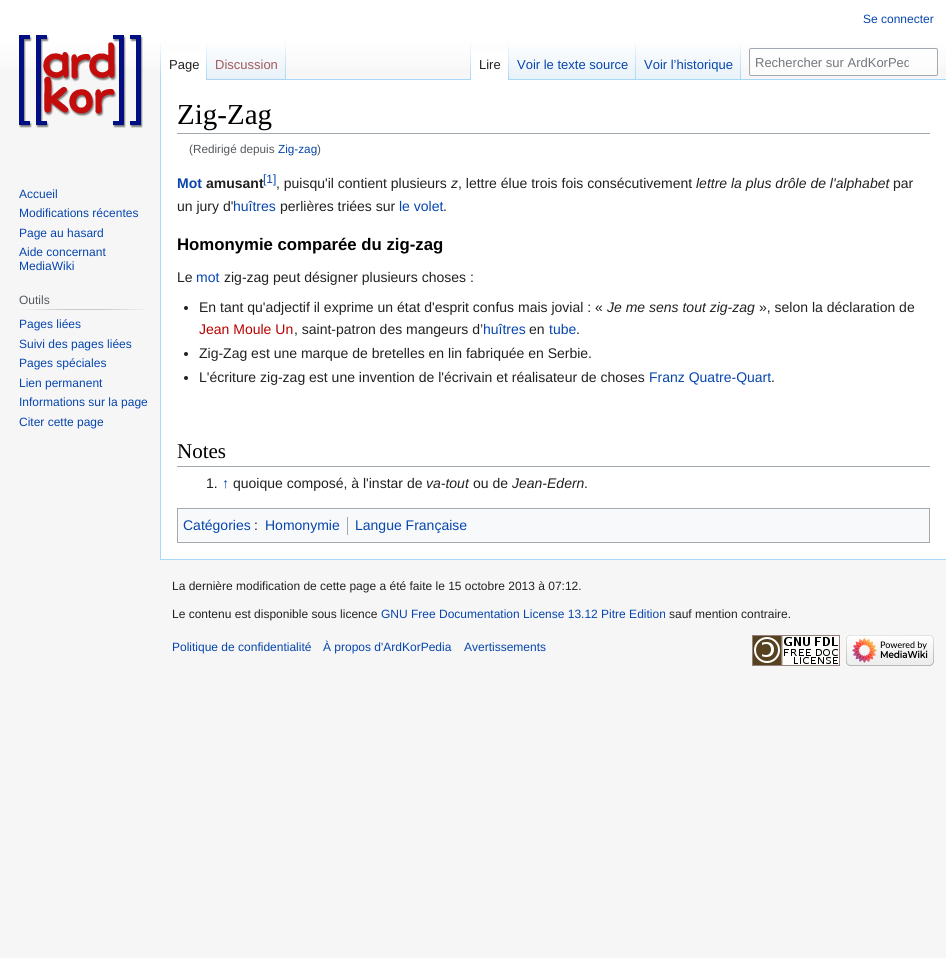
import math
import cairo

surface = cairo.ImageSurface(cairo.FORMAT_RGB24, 946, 958)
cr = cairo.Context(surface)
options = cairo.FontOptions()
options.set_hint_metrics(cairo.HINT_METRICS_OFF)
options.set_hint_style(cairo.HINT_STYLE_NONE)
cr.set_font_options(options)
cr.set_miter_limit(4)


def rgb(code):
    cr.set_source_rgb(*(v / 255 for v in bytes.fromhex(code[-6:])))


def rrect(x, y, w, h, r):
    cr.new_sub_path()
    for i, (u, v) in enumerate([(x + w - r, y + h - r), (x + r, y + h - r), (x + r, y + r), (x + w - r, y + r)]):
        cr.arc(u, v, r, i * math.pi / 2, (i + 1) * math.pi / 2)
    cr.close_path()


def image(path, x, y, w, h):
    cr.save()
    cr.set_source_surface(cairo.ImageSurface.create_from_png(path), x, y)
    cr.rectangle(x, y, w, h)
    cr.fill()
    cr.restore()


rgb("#f6f6f6")
cr.paint()
gradient = cairo.LinearGradient(473, 0, 473, 80)
gradient.add_color_stop_rgba(0.5, 1, 1, 1, 1)
gradient.add_color_stop_rgba(1, 0.965, 0.965, 0.965, 1)
cr.set_source(gradient)
cr.rectangle(0, 0, 946, 69)
cr.fill()
rgb("#a7d7f9")
cr.rectangle(160, 559, 786, 1)
cr.fill()
cr.rectangle(160, 79, 1, 481)
cr.fill()
gradient = cairo.LinearGradient(161, 40, 161, 80)
gradient.add_color_stop_rgba(0, 0.655, 0.843, 0.976, 0)
gradient.add_color_stop_rgba(1, 0.655, 0.843, 0.976, 1)
cr.set_source(gradient)
cr.rectangle(160, 40, 1, 40)
cr.fill()
rgb("#ffffff")
cr.rectangle(161, 51, 45, 29)
cr.fill()
gradient = cairo.LinearGradient(207, 40, 207, 80)
gradient.add_color_stop_rgba(0, 1, 1, 1, 1)
gradient.add_color_stop_rgba(1, 0.655, 0.843, 0.976, 1)
cr.set_source(gradient)
cr.rectangle(206, 40, 1, 40)
cr.fill()
gradient = cairo.LinearGradient(247, 80, 247, 40)
gradient.add_color_stop_rgba(0, 0.467, 0.757, 0.965, 1)
gradient.add_color_stop_rgba(0.03, 0.91, 0.949, 0.973, 1)
gradient.add_color_stop_rgba(1, 1, 1, 1, 1)
cr.set_source(gradient)
cr.rectangle(207, 46, 79, 34)
cr.fill()
gradient = cairo.LinearGradient(286, 40, 286, 80)
gradient.add_color_stop_rgba(0, 0.655, 0.843, 0.976, 0)
gradient.add_color_stop_rgba(1, 0.655, 0.843, 0.976, 1)
cr.set_source(gradient)
cr.rectangle(285, 40, 1, 40)
cr.fill()
rgb("#a7d7f9")
cr.rectangle(286, 79, 660, 1)
cr.fill()
gradient = cairo.LinearGradient(471, 40, 471, 80)
gradient.add_color_stop_rgba(0, 0.655, 0.843, 0.976, 0)
gradient.add_color_stop_rgba(1, 0.655, 0.843, 0.976, 1)
cr.set_source(gradient)
cr.rectangle(470, 40, 1, 40)
cr.fill()
rgb("#ffffff")
cr.rectangle(471, 51, 37, 29)
cr.fill()
gradient = cairo.LinearGradient(509, 40, 509, 80)
gradient.add_color_stop_rgba(0, 1, 1, 1, 1)
gradient.add_color_stop_rgba(1, 0.655, 0.843, 0.976, 1)
cr.set_source(gradient)
cr.rectangle(508, 40, 1, 40)
cr.fill()
gradient = cairo.LinearGradient(573, 80, 573, 40)
gradient.add_color_stop_rgba(0, 0.467, 0.757, 0.965, 1)
gradient.add_color_stop_rgba(0.03, 0.91, 0.949, 0.973, 1)
gradient.add_color_stop_rgba(1, 1, 1, 1, 1)
cr.set_source(gradient)
cr.rectangle(509, 46, 127, 33)
cr.fill()
gradient = cairo.LinearGradient(636, 40, 636, 80)
gradient.add_color_stop_rgba(0, 0.655, 0.843, 0.976, 0)
gradient.add_color_stop_rgba(1, 0.655, 0.843, 0.976, 1)
cr.set_source(gradient)
cr.rectangle(635, 40, 1, 40)
cr.fill()
gradient = cairo.LinearGradient(689, 80, 689, 40)
gradient.add_color_stop_rgba(0, 0.467, 0.757, 0.965, 1)
gradient.add_color_stop_rgba(0.03, 0.91, 0.949, 0.973, 1)
gradient.add_color_stop_rgba(1, 1, 1, 1, 1)
cr.set_source(gradient)
cr.rectangle(636, 46, 105, 33)
cr.fill()
gradient = cairo.LinearGradient(741, 40, 741, 80)
gradient.add_color_stop_rgba(0, 0.655, 0.843, 0.976, 0)
gradient.add_color_stop_rgba(1, 0.655, 0.843, 0.976, 1)
cr.set_source(gradient)
cr.rectangle(740, 40, 1, 40)
cr.fill()
cr.set_source_rgba(1, 1, 1, 0.5)
rrect(749.5, 48.5, 188, 27, 1.5)
cr.fill_preserve()
rgb("#a2a9b1")
cr.set_line_width(1)
cr.stroke()
image("img/1.png", 19, 35, 124, 93)
gradient = cairo.LinearGradient(19, 310, 150, 310)
gradient.add_color_stop_rgba(0, 0.965, 0.965, 0.965, 1)
gradient.add_color_stop_rgba(0.33, 0.784, 0.8, 0.82, 1)
gradient.add_color_stop_rgba(0.66, 0.784, 0.8, 0.82, 1)
gradient.add_color_stop_rgba(1, 0.965, 0.965, 0.965, 1)
cr.set_source(gradient)
cr.rectangle(19, 309, 131, 1)
cr.fill()
rgb("#ffffff")
cr.rectangle(161, 80, 785, 479)
cr.fill()
rgb("#a2a9b1")
cr.rectangle(177, 133, 753, 1)
cr.fill()
rgb("#202122")
cr.arc(186, 308, 2, 0, 2 * math.pi)
cr.fill()
cr.arc(186, 354, 2, 0, 2 * math.pi)
cr.fill()
cr.arc(186, 378, 2, 0, 2 * math.pi)
cr.fill()
rgb("#a2a9b1")
cr.rectangle(177, 466, 753, 1)
cr.fill()
rgb("#f8f9fa")
cr.rectangle(177.5, 508.5, 752, 34)
cr.fill_preserve()
rgb("#a2a9b1")
cr.stroke()
cr.rectangle(347, 517, 1, 18)
cr.fill()
image("img/2.png", 752, 635, 88, 31)
image("img/3.png", 846, 635, 88, 31)
cr.select_font_face("Liberation Sans")
cr.set_font_size(12)
rgb("#0645ad")
cr.move_to(863, 23)
cr.show_text("Se connecter")
cr.set_font_size(13)
rgb("#202122")
cr.move_to(169, 69)
cr.show_text("Page")
rgb("#a55858")
cr.move_to(215, 69)
cr.show_text("Discussion")
rgb("#202122")
cr.move_to(479, 69)
cr.show_text("Lire")
rgb("#0645ad")
cr.move_to(517, 69)
cr.show_text("Voir le texte source")
cr.move_to(644, 69)
cr.show_text("Voir l’historique")
cr.save()
cr.rectangle(755, 55, 154, 15)
cr.clip()
rgb("#72777d")
cr.move_to(755, 67)
cr.show_text("Rechercher sur ArdKorPed")
cr.restore()
cr.set_font_size(12)
for x, y, s in [
    (19, 198, "Accueil"),
    (19, 217, "Modifications récentes"),
    (19, 237, "Page au hasard"),
    (19, 256, "Aide concernant"),
    (19, 270, "MediaWiki"),
]:
    cr.move_to(x, y)
    cr.show_text(s)
rgb("#54595d")
cr.move_to(19, 304)
cr.show_text("Outils")
rgb("#0645ad")
for x, y, s in [
    (19, 328, "Pages liées"),
    (19, 348, "Suivi des pages liées"),
    (19, 367, "Pages spéciales"),
    (19, 387, "Lien permanent"),
    (19, 406, "Informations sur la page"),
    (19, 426, "Citer cette page"),
]:
    cr.move_to(x, y)
    cr.show_text(s)
cr.select_font_face("Liberation Serif")
cr.set_font_size(29)
rgb("#000000")
cr.move_to(177, 124)
cr.show_text("Zig-Zag")
cr.select_font_face("Liberation Sans")
cr.set_font_size(11.75)
rgb("#54595d")
cr.move_to(189, 153)
cr.show_text("(Redirigé depuis")
rgb("#0645ad")
cr.move_to(278, 153)
cr.show_text("Zig-zag")
rgb("#54595d")
cr.move_to(317, 153)
cr.show_text(")")
cr.select_font_face("Liberation Sans", cairo.FONT_SLANT_NORMAL, cairo.FONT_WEIGHT_BOLD)
cr.set_font_size(14)
rgb("#0645ad")
cr.move_to(177, 188)
cr.show_text("Mot")
rgb("#202122")
cr.move_to(206, 188)
cr.show_text("amusant")
cr.select_font_face("Liberation Sans")
cr.set_font_size(12)
rgb("#0645ad")
cr.move_to(263, 183)
cr.show_text("[1]")
cr.set_font_size(14)
rgb("#202122")
cr.move_to(276, 188)
cr.show_text(", puisqu'il contient plusieurs")
cr.select_font_face("Liberation Sans", cairo.FONT_SLANT_ITALIC)
cr.move_to(451, 188)
cr.show_text("z")
cr.select_font_face("Liberation Sans")
cr.move_to(458, 188)
cr.show_text(", lettre élue trois fois consécutivement")
cr.select_font_face("Liberation Sans", cairo.FONT_SLANT_ITALIC)
cr.move_to(696, 188)
cr.show_text("lettre la plus drôle de l'alphabet")
cr.select_font_face("Liberation Sans")
cr.move_to(893, 188)
cr.show_text("par")
cr.move_to(177, 211)
cr.show_text("un jury d'")
rgb("#0645ad")
cr.move_to(233, 211)
cr.show_text("huîtres")
rgb("#202122")
cr.move_to(280, 211)
cr.show_text("perlières triées sur")
rgb("#0645ad")
cr.move_to(399, 211)
cr.show_text("le volet")
rgb("#202122")
cr.move_to(443, 211)
cr.show_text(".")
cr.select_font_face("Liberation Sans", cairo.FONT_SLANT_NORMAL, cairo.FONT_WEIGHT_BOLD)
cr.set_font_size(16.75)
rgb("#000000")
cr.move_to(177, 250)
cr.show_text("Homonymie comparée du zig-zag")
cr.select_font_face("Liberation Sans")
cr.set_font_size(14)
rgb("#202122")
cr.move_to(177, 282)
cr.show_text("Le")
rgb("#0645ad")
cr.move_to(196, 282)
cr.show_text("mot")
rgb("#202122")
cr.move_to(224, 282)
cr.show_text("zig-zag peut désigner plusieurs choses :")
cr.move_to(199, 312)
cr.show_text("En tant qu'adjectif il exprime un état d'esprit confus mais jovial : «")
cr.select_font_face("Liberation Sans", cairo.FONT_SLANT_ITALIC)
cr.move_to(607, 312)
cr.show_text("Je me sens tout zig-zag")
cr.select_font_face("Liberation Sans")
cr.move_to(759, 312)
cr.show_text("», selon la déclaration de")
rgb("#ba0000")
cr.move_to(199, 334)
cr.show_text("Jean Moule Un")
rgb("#202122")
cr.move_to(294, 334)
cr.show_text(", saint-patron des mangeurs d’")
rgb("#0645ad")
cr.move_to(483, 334)
cr.show_text("huîtres")
rgb("#202122")
cr.move_to(529, 334)
cr.show_text("en")
rgb("#0645ad")
cr.move_to(549, 334)
cr.show_text("tube")
rgb("#202122")
for x, y, s in [
    (576, 334, "."),
    (199, 358, "Zig-Zag est une marque de bretelles en lin fabriquée en Serbie."),
    (199, 382, "L'écriture zig-zag est une invention de l'écrivain et réalisateur de choses"),
]:
    cr.move_to(x, y)
    cr.show_text(s)
rgb("#0645ad")
cr.move_to(649, 382)
cr.show_text("Franz Quatre-Quart")
rgb("#202122")
cr.move_to(771, 382)
cr.show_text(".")
cr.select_font_face("Liberation Serif")
cr.set_font_size(21)
rgb("#000000")
cr.move_to(177, 458)
cr.show_text("Notes")
cr.select_font_face("Liberation Sans")
cr.set_font_size(14)
rgb("#202122")
cr.move_to(206, 488)
cr.show_text("1.")
rgb("#0645ad")
cr.move_to(222, 488)
cr.show_text("↑")
rgb("#202122")
cr.move_to(233, 488)
cr.show_text("quoique composé, à l'instar de")
cr.select_font_face("Liberation Sans", cairo.FONT_SLANT_ITALIC)
cr.move_to(426, 488)
cr.show_text("va-tout")
cr.select_font_face("Liberation Sans")
cr.move_to(473, 488)
cr.show_text("ou de")
cr.select_font_face("Liberation Sans", cairo.FONT_SLANT_ITALIC)
cr.move_to(512, 488)
cr.show_text("Jean-Edern")
cr.select_font_face("Liberation Sans")
cr.move_to(584, 488)
cr.show_text(".")
rgb("#0645ad")
cr.move_to(183, 530)
cr.show_text("Catégories")
rgb("#202122")
cr.move_to(254, 530)
cr.show_text(":")
rgb("#0645ad")
cr.move_to(265, 530)
cr.show_text("Homonymie")
cr.move_to(355, 530)
cr.show_text("Langue Française")
cr.set_font_size(12)
rgb("#202122")
cr.move_to(172, 590)
cr.show_text("La dernière modification de cette page a été faite le 15 octobre 2013 à 07:12.")
cr.move_to(172, 618)
cr.show_text("Le contenu est disponible sous licence")
rgb("#0645ad")
cr.move_to(381, 618)
cr.show_text("GNU Free Documentation License 13.12 Pitre Edition")
rgb("#202122")
cr.move_to(669, 618)
cr.show_text("sauf mention contraire.")
rgb("#0645ad")
for x, y, s in [
    (172, 651, "Politique de confidentialité"),
    (323, 651, "À propos d'ArdKorPedia"),
    (464, 651, "Avertissements"),
]:
    cr.move_to(x, y)
    cr.show_text(s)
surface.write_to_png("page.png")
